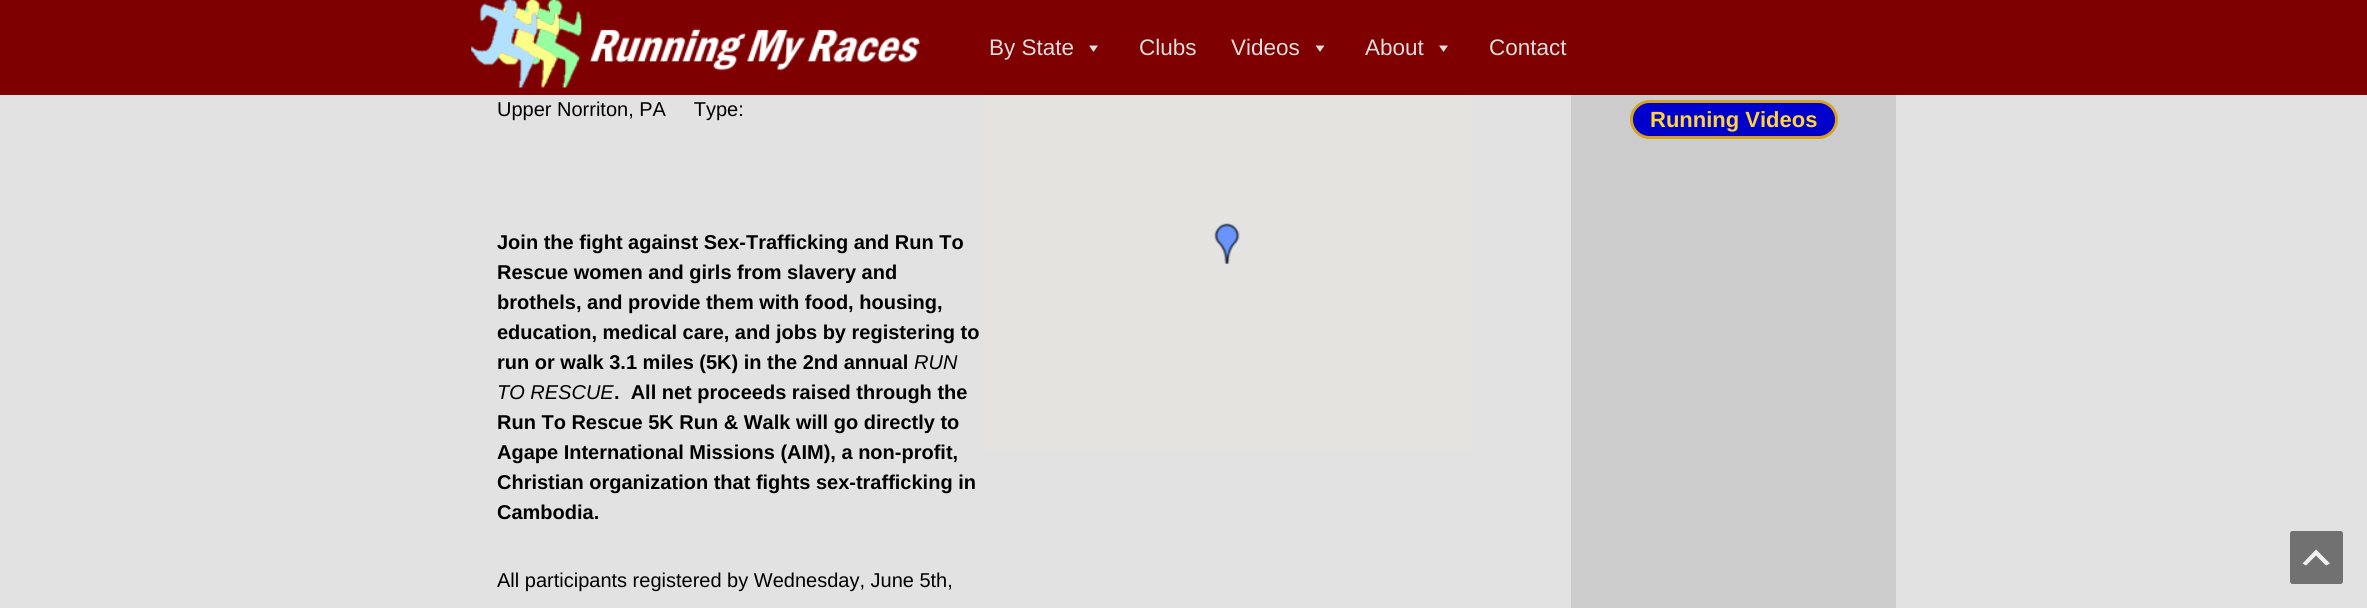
import math
import cairo

surface = cairo.ImageSurface(cairo.FORMAT_RGB24, 2367, 608)
cr = cairo.Context(surface)
options = cairo.FontOptions()
options.set_hint_metrics(cairo.HINT_METRICS_OFF)
options.set_hint_style(cairo.HINT_STYLE_NONE)
cr.set_font_options(options)
cr.set_miter_limit(4)


def rgb(code):
    cr.set_source_rgb(*(v / 255 for v in bytes.fromhex(code[-6:])))


def rrect(x, y, w, h, r):
    cr.new_sub_path()
    for i, (u, v) in enumerate([(x + w - r, y + h - r), (x + r, y + h - r), (x + r, y + r), (x + w - r, y + r)]):
        cr.arc(u, v, r, i * math.pi / 2, (i + 1) * math.pi / 2)
    cr.close_path()


def image(path, x, y, w, h):
    cr.save()
    cr.set_source_surface(cairo.ImageSurface.create_from_png(path), x, y)
    cr.rectangle(x, y, w, h)
    cr.fill()
    cr.restore()


rgb("#e2e2e2")
cr.paint()
rgb("#7f0000")
cr.rectangle(0, 0, 2367, 95)
cr.fill()
image("img/1.png", 471, 0, 450, 88)
rgb("#dddddd")
cr.new_path()
cr.move_to(1098, 45.5)
cr.line_to(1093.5, 52)
cr.line_to(1089, 45.5)
cr.close_path()
cr.fill()
cr.new_path()
cr.move_to(1324.5, 45.5)
cr.line_to(1320, 52)
cr.line_to(1315.5, 45.5)
cr.close_path()
cr.fill()
cr.new_path()
cr.move_to(1448, 45.5)
cr.line_to(1443.5, 52)
cr.line_to(1439, 45.5)
cr.close_path()
cr.fill()
rgb("#e5e3df")
cr.rectangle(984, 95, 487, 356)
cr.fill()
image("img/2.png", 1214, 223, 26, 41)
rgb("#cccccc")
cr.rectangle(1571, 95, 325, 513)
cr.fill()
rgb("#0000cc")
rrect(1631.5, 101.5, 205, 36, 18)
cr.fill_preserve()
rgb("#d7a220")
cr.set_line_width(3)
cr.stroke()
rgb("#717171")
rrect(2290, 531, 53, 53, 2.5)
cr.fill()
rgb("#f1f1f1")
cr.new_path()
cr.move_to(2326, 565.5)
cr.line_to(2316, 555.5)
cr.line_to(2306, 565.5)
cr.line_to(2302.5, 563.5)
cr.line_to(2316, 549.5)
cr.line_to(2330, 563.5)
cr.close_path()
cr.fill()
cr.select_font_face("Liberation Sans")
cr.set_font_size(22.5)
rgb("#dddddd")
for x, y, s in [
    (989, 55, "By State"),
    (1139, 55, "Clubs"),
    (1231, 55, "Videos"),
    (1365, 55, "About"),
    (1489, 55, "Contact"),
]:
    cr.move_to(x, y)
    cr.show_text(s)
cr.set_font_size(20)
rgb("#000000")
cr.move_to(497, 116)
cr.show_text("Upper Norriton, PA     Type:")
cr.select_font_face("Liberation Sans", cairo.FONT_SLANT_NORMAL, cairo.FONT_WEIGHT_BOLD)
for x, y, s in [
    (497, 249, "Join the fight against Sex-Trafficking and Run To"),
    (497, 279, "Rescue women and girls from slavery and"),
    (497, 309, "brothels, and provide them with food, housing,"),
    (497, 339, "education, medical care, and jobs by registering to"),
    (497, 369, "run or walk 3.1 miles (5K) in the 2nd annual"),
]:
    cr.move_to(x, y)
    cr.show_text(s)
cr.select_font_face("Liberation Sans", cairo.FONT_SLANT_ITALIC)
cr.move_to(914, 369)
cr.show_text("RUN")
cr.move_to(497, 399)
cr.show_text("TO RESCUE")
cr.select_font_face("Liberation Sans", cairo.FONT_SLANT_NORMAL, cairo.FONT_WEIGHT_BOLD)
for x, y, s in [
    (614, 399, ".  All net proceeds raised through the"),
    (497, 429, "Run To Rescue 5K Run & Walk will go directly to"),
    (497, 459, "Agape International Missions (AIM), a non-profit,"),
    (497, 489, "Christian organization that fights sex-trafficking in"),
    (497, 519, "Cambodia."),
]:
    cr.move_to(x, y)
    cr.show_text(s)
cr.select_font_face("Liberation Sans")
cr.move_to(497, 587)
cr.show_text("All participants registered by Wednesday, June 5th,")
cr.select_font_face("Liberation Sans", cairo.FONT_SLANT_NORMAL, cairo.FONT_WEIGHT_BOLD)
cr.set_font_size(22)
rgb("#ffd33c")
cr.move_to(1650, 127)
cr.show_text("Running Videos")
surface.write_to_png("page.png")
